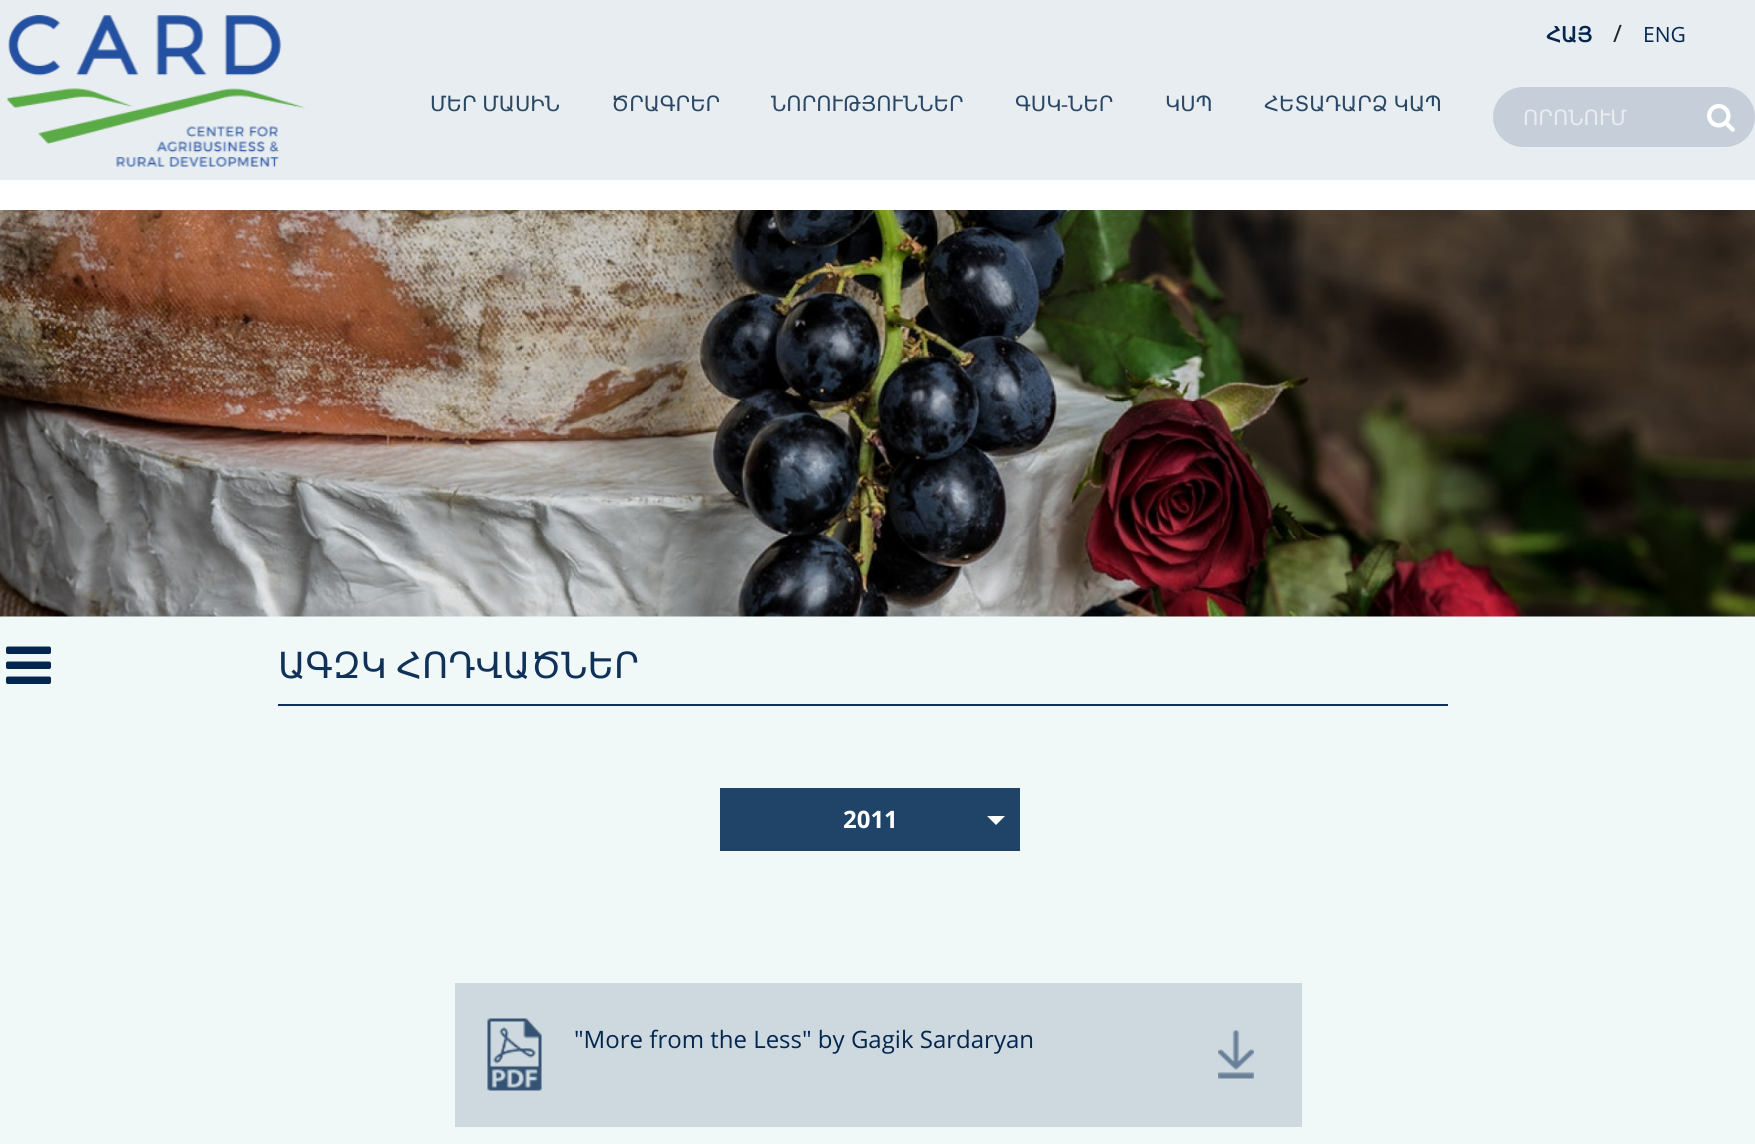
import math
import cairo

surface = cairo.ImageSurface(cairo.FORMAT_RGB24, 1755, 1144)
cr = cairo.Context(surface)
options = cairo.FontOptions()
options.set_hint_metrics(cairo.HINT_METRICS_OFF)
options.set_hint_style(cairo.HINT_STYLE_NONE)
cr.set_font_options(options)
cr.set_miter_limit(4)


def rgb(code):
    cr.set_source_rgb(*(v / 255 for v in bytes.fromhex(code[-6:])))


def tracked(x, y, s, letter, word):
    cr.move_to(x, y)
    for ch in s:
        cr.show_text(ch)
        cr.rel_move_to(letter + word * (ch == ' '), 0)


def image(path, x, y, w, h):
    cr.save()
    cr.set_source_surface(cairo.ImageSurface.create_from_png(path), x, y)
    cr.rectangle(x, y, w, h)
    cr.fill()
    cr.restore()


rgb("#ffffff")
cr.paint()
rgb("#e8edf1")
cr.rectangle(0, 0, 1755, 180)
cr.fill()
image("img/1.png", 7, 15, 298, 152)
rgb("#c6cfd9")
cr.new_path()
cr.move_to(1523, 87)
cr.line_to(1695, 87)
cr.line_to(1695, 147)
cr.line_to(1523, 147)
cr.curve_to(1506.5, 147, 1493, 133.5, 1493, 117)
cr.curve_to(1493, 100.5, 1506.5, 87, 1523, 87)
cr.close_path()
cr.fill()
cr.new_path()
cr.move_to(1695, 87)
cr.line_to(1725, 87)
cr.curve_to(1741.5, 87, 1755, 100.5, 1755, 117)
cr.curve_to(1755, 133.5, 1741.5, 147, 1725, 147)
cr.line_to(1695, 147)
cr.close_path()
cr.fill()
image("img/2.png", 1707, 104, 28, 28)
rgb("#f0f8f8")
cr.rectangle(0, 616, 1755, 528)
cr.fill()
image("img/3.png", 6, 646, 45, 38)
image("img/4.png", 0, 210, 1755, 407)
rgb("#103259")
cr.rectangle(278, 704, 1170, 2)
cr.fill()
rgb("#204468")
cr.rectangle(720, 788, 300, 63)
cr.fill()
rgb("#1d3d5e")
cr.new_path()
cr.move_to(1020, 850)
cr.line_to(720, 850)
cr.line_to(722, 849)
cr.line_to(1018, 849)
cr.close_path()
cr.fill()
rgb("#ffffff")
cr.new_path()
cr.move_to(987, 816)
cr.line_to(1005, 816)
cr.line_to(996, 825)
cr.close_path()
cr.fill()
rgb("#cdd9df")
cr.rectangle(455, 983, 847, 144)
cr.fill()
image("img/5.png", 487, 1018, 55, 73)
image("img/6.png", 1218, 1030, 36, 49)
cr.select_font_face("DejaVu Sans")
cr.set_font_size(21)
rgb("#2a4764")
tracked(430, 111, "ՄԵՐ ՄԱՍԻՆ", 0, -1)
for x, y, s in [
    (611, 111, "ԾՐԱԳՐԵՐ"),
    (771, 111, "ՆՈՐՈՒԹՅՈՒՆՆԵՐ"),
    (1015, 111, "ԳՍԿ"),
]:
    cr.move_to(x, y)
    cr.show_text(s)
cr.select_font_face("Liberation Serif")
cr.move_to(1061, 111)
cr.show_text("-")
cr.select_font_face("DejaVu Sans")
cr.move_to(1068, 111)
cr.show_text("ՆԵՐ")
cr.move_to(1165, 111)
cr.show_text("ԿՍՊ")
tracked(1264, 111, "ՀԵՏԱԴԱՐՁ ԿԱՊ", 0, -1)
cr.select_font_face("DejaVu Sans", cairo.FONT_SLANT_NORMAL, cairo.FONT_WEIGHT_BOLD)
rgb("#03264f")
cr.move_to(1546, 42)
cr.show_text("ՀԱՅ")
cr.select_font_face("Noto Sans")
cr.set_font_size(24)
rgb("#212529")
cr.move_to(1613, 42)
cr.show_text("/")
cr.select_font_face("Open Sans")
cr.set_font_size(21)
rgb("#03264f")
cr.move_to(1643, 42)
cr.show_text("ENG")
cr.select_font_face("DejaVu Sans")
rgb("#eaedf0")
cr.move_to(1523, 125)
cr.show_text("ՈՐՈՆՈՒՄ")
cr.set_font_size(36)
rgb("#103259")
tracked(278, 678, "ԱԳԶԿ ՀՈԴՎԱԾՆԵՐ", 0, -2)
cr.select_font_face("Open Sans", cairo.FONT_SLANT_NORMAL, cairo.FONT_WEIGHT_BOLD)
cr.set_font_size(24)
rgb("#ffffff")
cr.move_to(843, 828)
cr.show_text("2011")
cr.select_font_face("Open Sans")
rgb("#03264f")
cr.move_to(574, 1048)
cr.show_text("\"More from the Less\" by Gagik Sardaryan")
surface.write_to_png("page.png")
